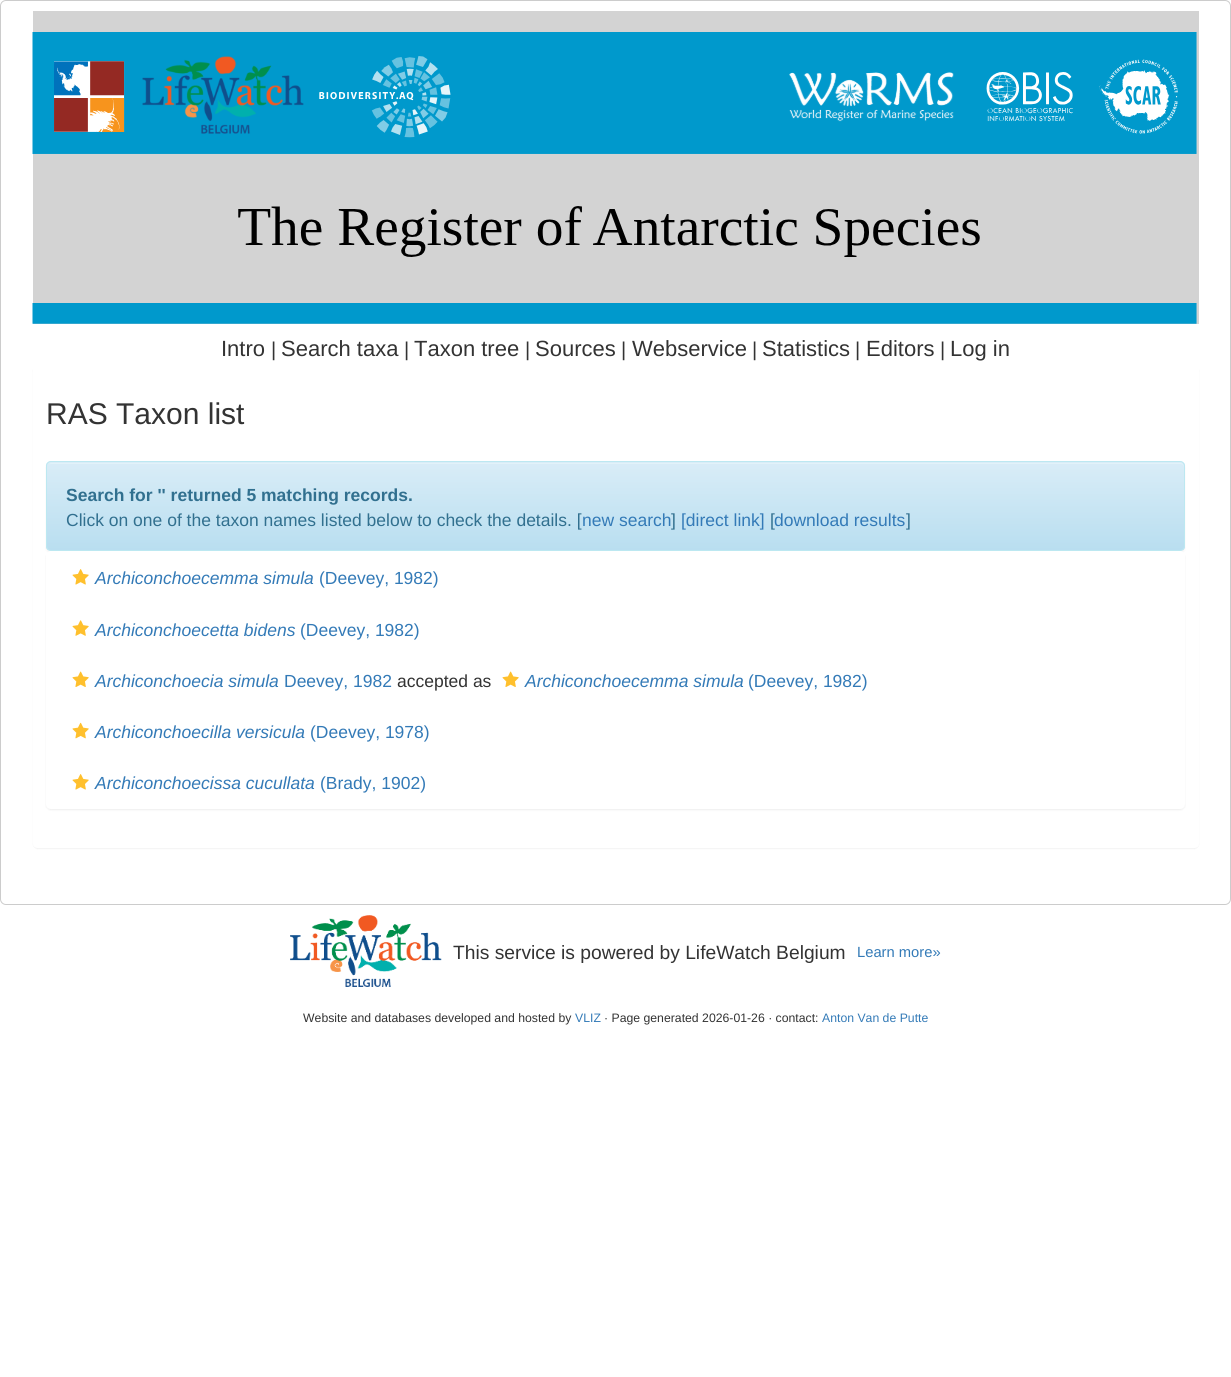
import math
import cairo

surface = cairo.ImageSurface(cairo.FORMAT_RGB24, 1231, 1377)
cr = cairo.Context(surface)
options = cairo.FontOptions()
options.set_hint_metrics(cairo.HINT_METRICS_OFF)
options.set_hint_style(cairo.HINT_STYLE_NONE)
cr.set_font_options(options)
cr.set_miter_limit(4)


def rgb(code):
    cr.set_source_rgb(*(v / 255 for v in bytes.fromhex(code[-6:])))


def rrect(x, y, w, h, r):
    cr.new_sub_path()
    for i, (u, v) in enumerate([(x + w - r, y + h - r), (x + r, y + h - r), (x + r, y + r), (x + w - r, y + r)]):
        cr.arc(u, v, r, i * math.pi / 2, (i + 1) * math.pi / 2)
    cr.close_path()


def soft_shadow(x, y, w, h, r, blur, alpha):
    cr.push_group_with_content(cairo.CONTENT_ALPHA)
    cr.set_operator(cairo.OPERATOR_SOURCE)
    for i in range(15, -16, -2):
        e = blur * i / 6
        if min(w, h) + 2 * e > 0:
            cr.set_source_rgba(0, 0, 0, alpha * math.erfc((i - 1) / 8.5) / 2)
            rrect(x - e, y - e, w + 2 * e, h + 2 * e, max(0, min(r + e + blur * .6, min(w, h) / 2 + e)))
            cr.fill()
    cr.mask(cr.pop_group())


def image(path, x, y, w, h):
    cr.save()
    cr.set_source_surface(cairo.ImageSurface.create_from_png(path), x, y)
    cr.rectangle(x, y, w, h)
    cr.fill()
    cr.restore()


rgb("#ffffff")
cr.paint()
rrect(0.5, 0.5, 1230, 904, 5.5)
rgb("#cccccc")
cr.set_line_width(1)
cr.stroke()
rgb("#d3d3d3")
cr.rectangle(33, 11, 1166, 313)
cr.fill()
image("img/1.png", 32, 32, 1165, 292)
cr.save()
cr.set_fill_rule(cairo.FILL_RULE_EVEN_ODD)
cr.new_path()
cr.move_to(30, 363)
cr.line_to(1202, 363)
cr.line_to(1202, 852)
cr.line_to(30, 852)
cr.close_path()
cr.move_to(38, 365)
cr.line_to(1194, 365)
cr.curve_to(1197, 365, 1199, 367, 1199, 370)
cr.line_to(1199, 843)
cr.curve_to(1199, 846, 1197, 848, 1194, 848)
cr.line_to(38, 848)
cr.curve_to(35, 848, 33, 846, 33, 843)
cr.line_to(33, 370)
cr.curve_to(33, 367, 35, 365, 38, 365)
cr.close_path()
cr.clip()
rgb("#000000")
soft_shadow(33, 366, 1166, 483, 5, 0.5, 0.05)
cr.restore()
rgb("#000000")
soft_shadow(46, 463, 1139, 90, 5, 1, 0.05)
rgb("#d9edf7")
rrect(46, 461, 1139, 90, 5)
cr.fill()
cr.save()
rrect(46, 461, 1139, 90, 5)
cr.clip()
gradient = cairo.LinearGradient(616, 462, 616, 550)
gradient.add_color_stop_rgba(0, 0.851, 0.929, 0.969, 1)
gradient.add_color_stop_rgba(1, 0.725, 0.871, 0.941, 1)
cr.set_source(gradient)
cr.rectangle(46, 463, 1139, 87)
cr.fill()
cr.restore()
rgb("#e2f2f9")
cr.new_path()
cr.move_to(51, 464)
cr.line_to(1180, 464)
cr.curve_to(1182, 464, 1184, 465, 1184, 468)
cr.curve_to(1184, 465, 1183, 463, 1180, 463)
cr.line_to(52, 463)
cr.curve_to(49, 463, 48, 465, 48, 468)
cr.curve_to(48, 465, 49, 464, 51, 464)
cr.close_path()
cr.fill()
rrect(46.5, 461.5, 1138, 89, 4.5)
rgb("#bce8f1")
cr.stroke()
rgb("#000000")
soft_shadow(46, 553, 1139, 257, 5, 1, 0.07)
rgb("#ffffff")
cr.new_path()
cr.move_to(51, 551)
cr.line_to(1180, 551)
cr.curve_to(1183, 551, 1185, 553, 1185, 556)
cr.line_to(1185, 604)
cr.line_to(46, 604)
cr.line_to(46, 556)
cr.curve_to(46, 553, 48, 551, 51, 551)
cr.close_path()
cr.fill()
image("img/2.png", 72, 569, 17, 16)
cr.rectangle(46, 604, 1139, 152)
cr.fill()
image("img/3.png", 72, 620, 17, 16)
image("img/4.png", 72, 671, 17, 16)
image("img/4.png", 502, 671, 17, 16)
image("img/5.png", 72, 722, 17, 17)
cr.new_path()
cr.move_to(46, 756)
cr.line_to(1185, 756)
cr.line_to(1185, 804)
cr.curve_to(1185, 807, 1183, 809, 1180, 809)
cr.line_to(51, 809)
cr.curve_to(48, 809, 46, 807, 46, 804)
cr.close_path()
cr.fill()
image("img/2.png", 72, 774, 17, 16)
image("img/6.png", 290, 915, 152, 72)
cr.select_font_face("Liberation Sans")
cr.set_font_size(22)
rgb("#333333")
cr.move_to(221, 356)
cr.show_text("Intro")
cr.set_font_size(20)
cr.move_to(271, 356)
cr.show_text("|")
cr.set_font_size(22)
cr.move_to(281, 356)
cr.show_text("Search taxa")
cr.set_font_size(20)
cr.move_to(404, 356)
cr.show_text("|")
cr.set_font_size(22)
cr.move_to(414, 356)
cr.show_text("Taxon tree")
cr.set_font_size(20)
cr.move_to(525, 356)
cr.show_text("|")
cr.set_font_size(22)
cr.move_to(535, 356)
cr.show_text("Sources")
cr.set_font_size(20)
cr.move_to(621, 356)
cr.show_text("|")
cr.set_font_size(22)
cr.move_to(632, 356)
cr.show_text("Webservice")
cr.set_font_size(20)
cr.move_to(752, 356)
cr.show_text("|")
cr.set_font_size(22)
cr.move_to(762, 356)
cr.show_text("Statistics")
cr.set_font_size(20)
cr.move_to(855, 356)
cr.show_text("|")
cr.set_font_size(22)
cr.move_to(866, 356)
cr.show_text("Editors")
cr.set_font_size(20)
cr.move_to(940, 356)
cr.show_text("|")
cr.set_font_size(22)
cr.move_to(950, 356)
cr.show_text("Log in")
cr.set_font_size(30)
cr.move_to(46, 424)
cr.show_text("RAS Taxon list")
cr.select_font_face("Liberation Sans", cairo.FONT_SLANT_NORMAL, cairo.FONT_WEIGHT_BOLD)
cr.set_font_size(17.5)
rgb("#31708f")
cr.move_to(66, 501)
cr.show_text("Search for '' returned 5 matching records.")
cr.select_font_face("Liberation Sans")
cr.move_to(66, 526)
cr.show_text("Click on one of the taxon names listed below to check the details. [")
rgb("#337ab7")
cr.move_to(582, 526)
cr.show_text("new search")
rgb("#31708f")
cr.move_to(671, 526)
cr.show_text("]")
rgb("#337ab7")
cr.move_to(681, 526)
cr.show_text("[direct link]")
rgb("#31708f")
cr.move_to(770, 526)
cr.show_text("[")
rgb("#337ab7")
cr.move_to(774, 526)
cr.show_text("download results")
rgb("#31708f")
cr.move_to(906, 526)
cr.show_text("]")
cr.select_font_face("Liberation Sans", cairo.FONT_SLANT_ITALIC)
rgb("#337ab7")
cr.move_to(95, 584)
cr.show_text("Archiconchoecemma simula")
cr.select_font_face("Liberation Sans")
cr.move_to(319, 584)
cr.show_text("(Deevey, 1982)")
cr.select_font_face("Liberation Sans", cairo.FONT_SLANT_ITALIC)
cr.move_to(95, 636)
cr.show_text("Archiconchoecetta bidens")
cr.select_font_face("Liberation Sans")
cr.move_to(300, 636)
cr.show_text("(Deevey, 1982)")
cr.select_font_face("Liberation Sans", cairo.FONT_SLANT_ITALIC)
cr.move_to(95, 687)
cr.show_text("Archiconchoecia simula")
cr.select_font_face("Liberation Sans")
cr.move_to(284, 687)
cr.show_text("Deevey, 1982")
rgb("#333333")
cr.move_to(397, 687)
cr.show_text("accepted as")
cr.select_font_face("Liberation Sans", cairo.FONT_SLANT_ITALIC)
rgb("#337ab7")
cr.move_to(525, 687)
cr.show_text("Archiconchoecemma simula")
cr.select_font_face("Liberation Sans")
cr.move_to(748, 687)
cr.show_text("(Deevey, 1982)")
cr.select_font_face("Liberation Sans", cairo.FONT_SLANT_ITALIC)
cr.move_to(95, 738)
cr.show_text("Archiconchoecilla versicula")
cr.select_font_face("Liberation Sans")
cr.move_to(310, 738)
cr.show_text("(Deevey, 1978)")
cr.select_font_face("Liberation Sans", cairo.FONT_SLANT_ITALIC)
cr.move_to(95, 789)
cr.show_text("Archiconchoecissa cucullata")
cr.select_font_face("Liberation Sans")
cr.move_to(320, 789)
cr.show_text("(Brady, 1902)")
cr.set_font_size(19.25)
rgb("#333333")
cr.move_to(453, 959)
cr.show_text("This service is powered by LifeWatch Belgium")
cr.set_font_size(14.75)
rgb("#337ab7")
cr.move_to(857, 957)
cr.show_text("Learn more»")
cr.set_font_size(12.25)
rgb("#333333")
cr.move_to(303, 1022)
cr.show_text("Website and databases developed and hosted by")
rgb("#337ab7")
cr.move_to(575, 1022)
cr.show_text("VLIZ")
rgb("#333333")
cr.move_to(604, 1022)
cr.show_text("· Page generated 2026-01-26 · contact:")
rgb("#337ab7")
cr.move_to(822, 1022)
cr.show_text("Anton Van de Putte")
surface.write_to_png("page.png")
